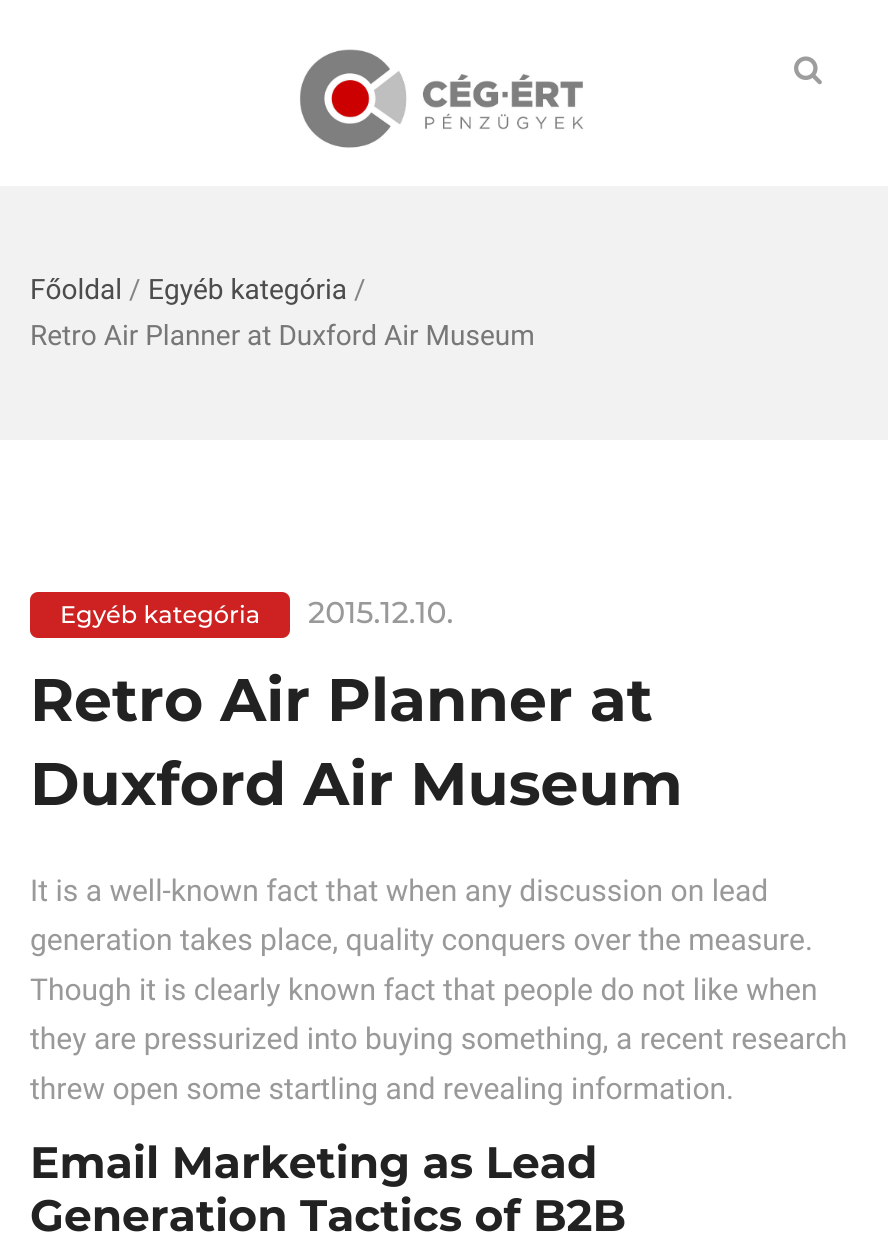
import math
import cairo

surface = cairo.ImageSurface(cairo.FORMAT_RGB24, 888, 1237)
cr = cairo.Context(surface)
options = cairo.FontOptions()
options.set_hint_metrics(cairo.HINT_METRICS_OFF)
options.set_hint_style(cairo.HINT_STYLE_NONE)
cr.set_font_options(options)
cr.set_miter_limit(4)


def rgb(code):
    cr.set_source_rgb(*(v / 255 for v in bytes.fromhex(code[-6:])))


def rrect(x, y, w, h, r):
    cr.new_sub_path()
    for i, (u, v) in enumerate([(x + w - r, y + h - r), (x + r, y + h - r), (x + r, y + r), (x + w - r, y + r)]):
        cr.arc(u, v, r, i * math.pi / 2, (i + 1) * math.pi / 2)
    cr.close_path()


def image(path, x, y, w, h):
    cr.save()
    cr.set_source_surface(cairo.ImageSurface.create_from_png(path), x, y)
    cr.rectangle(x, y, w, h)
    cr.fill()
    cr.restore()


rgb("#ffffff")
cr.paint()
image("img/1.png", 299, 49, 285, 99)
image("img/2.png", 794, 56, 28, 29)
rgb("#f2f2f2")
cr.rectangle(0, 186, 888, 254)
cr.fill()
rgb("#cd2122")
rrect(30, 592, 260, 46, 8)
cr.fill()
cr.select_font_face("Roboto")
cr.set_font_size(28)
rgb("#4c4c4c")
cr.move_to(30, 299)
cr.show_text("Főoldal")
rgb("#858585")
cr.move_to(129, 299)
cr.show_text("/")
rgb("#4c4c4c")
cr.move_to(148, 299)
cr.show_text("Egyéb kategória")
rgb("#858585")
cr.move_to(354, 299)
cr.show_text("/")
rgb("#777777")
cr.move_to(30, 345)
cr.show_text("Retro Air Planner at Duxford Air Museum")
cr.select_font_face("Montserrat Medium")
cr.set_font_size(24)
rgb("#ffffff")
cr.move_to(60, 623)
cr.show_text("Egyéb kategória")
cr.set_font_size(30)
rgb("#999999")
cr.move_to(308, 623)
cr.show_text("2015.12.10.")
cr.select_font_face("Montserrat", cairo.FONT_SLANT_NORMAL, cairo.FONT_WEIGHT_BOLD)
cr.set_font_size(60)
rgb("#222222")
cr.move_to(30, 721)
cr.show_text("Retro Air Planner at")
cr.move_to(30, 805)
cr.show_text("Duxford Air Museum")
cr.select_font_face("Roboto")
cr.set_font_size(30)
rgb("#999999")
for x, y, s in [
    (30, 901, "It is a well-known fact that when any discussion on lead"),
    (30, 950, "generation takes place, quality conquers over the measure."),
    (30, 1000, "Though it is clearly known fact that people do not like when"),
    (30, 1049, "they are pressurized into buying something, a recent research"),
    (30, 1099, "threw open some startling and revealing information."),
]:
    cr.move_to(x, y)
    cr.show_text(s)
cr.select_font_face("Montserrat", cairo.FONT_SLANT_NORMAL, cairo.FONT_WEIGHT_BOLD)
cr.set_font_size(44)
rgb("#222222")
cr.move_to(30, 1178)
cr.show_text("Email Marketing as Lead")
cr.move_to(30, 1231)
cr.show_text("Generation Tactics of B2B")
surface.write_to_png("page.png")
